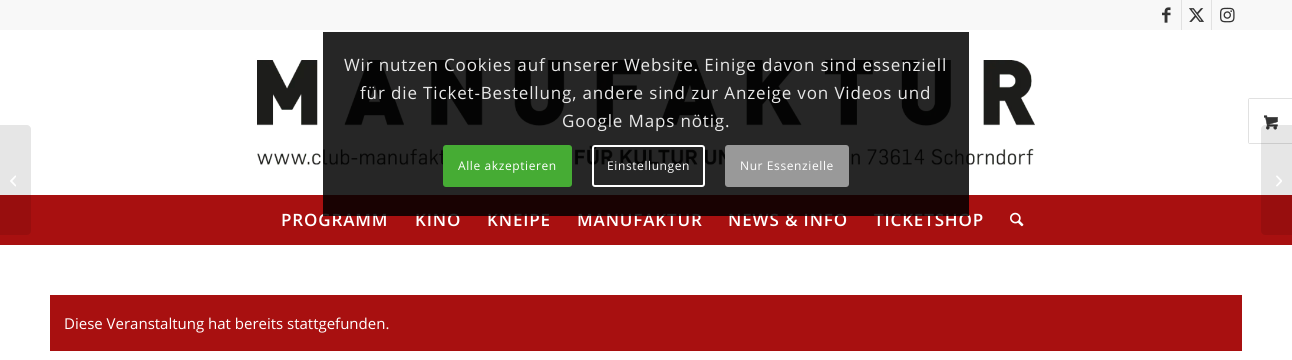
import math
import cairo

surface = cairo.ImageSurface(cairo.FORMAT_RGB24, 1292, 360)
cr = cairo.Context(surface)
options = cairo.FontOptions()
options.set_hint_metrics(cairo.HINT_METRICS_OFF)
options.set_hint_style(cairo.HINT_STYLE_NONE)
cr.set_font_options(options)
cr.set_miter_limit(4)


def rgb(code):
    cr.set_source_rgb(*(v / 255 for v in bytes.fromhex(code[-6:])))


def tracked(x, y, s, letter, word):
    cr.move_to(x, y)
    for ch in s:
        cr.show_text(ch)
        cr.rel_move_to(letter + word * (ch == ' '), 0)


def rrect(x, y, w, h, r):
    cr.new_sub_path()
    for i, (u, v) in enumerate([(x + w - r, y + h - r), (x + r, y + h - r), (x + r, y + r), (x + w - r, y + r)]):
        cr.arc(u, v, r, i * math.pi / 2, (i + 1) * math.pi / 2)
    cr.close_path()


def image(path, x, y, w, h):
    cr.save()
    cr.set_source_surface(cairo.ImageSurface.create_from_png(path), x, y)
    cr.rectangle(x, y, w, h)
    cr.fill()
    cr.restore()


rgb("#ffffff")
cr.paint()
rgb("#a81010")
cr.rectangle(0, 195, 1292, 50)
cr.fill()
cr.set_source_rgba(0, 0, 0, 0.1)
cr.new_path()
cr.move_to(0, 125)
cr.line_to(27, 125)
cr.curve_to(29, 125, 31, 127, 31, 129)
cr.line_to(31, 231)
cr.curve_to(31, 233, 29, 235, 27, 235)
cr.line_to(0, 235)
cr.close_path()
cr.fill()
image("img/1.png", 10, 175, 6, 12)
rgb("#f8f8f8")
cr.rectangle(0, 0, 1292, 30)
cr.fill()
rgb("#e1e1e1")
cr.rectangle(1181, 0, 1, 30)
cr.fill()
image("img/2.png", 1162, 7, 9, 16)
cr.rectangle(1211, 0, 1, 30)
cr.fill()
image("img/3.png", 1189, 8, 15, 14)
image("img/4.png", 1220, 7, 15, 16)
image("img/5.png", 257, 60, 778, 105)
rrect(1248.5, 98.5, 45, 45, 1.5)
cr.set_line_width(1)
cr.stroke()
rgb("#ffffff")
cr.rectangle(1249, 99, 1, 44)
cr.fill()
image("img/6.png", 1264, 115, 14, 15)
image("img/7.png", 1010, 212, 14, 15)
cr.set_source_rgba(0, 0, 0, 0.1)
cr.new_path()
cr.move_to(1265, 125)
cr.line_to(1292, 125)
cr.line_to(1292, 235)
cr.line_to(1265, 235)
cr.curve_to(1263, 235, 1261, 233, 1261, 231)
cr.line_to(1261, 129)
cr.curve_to(1261, 127, 1263, 125, 1265, 125)
cr.close_path()
cr.fill()
image("img/8.png", 1276, 175, 6, 12)
rgb("#a81010")
cr.rectangle(50, 295, 1192, 56)
cr.fill()
cr.select_font_face("Open Sans SemiBold")
cr.set_font_size(17)
rgb("#ffffff")
for x, y, s in [
    (281, 226, "PROGRAMM"),
    (415, 226, "KINO"),
    (487, 226, "KNEIPE"),
    (577, 226, "MANUFAKTUR"),
    (728, 226, "NEWS & INFO"),
    (874, 226, "TICKETSHOP"),
]:
    tracked(x, y, s, 0.85, 0)
cr.set_source_rgba(0, 0, 0, 0.85)
cr.rectangle(323, 32, 646, 184)
cr.fill()
rgb("#999999")
rrect(726, 146, 122, 40, 2)
cr.fill_preserve()
cr.set_line_width(2)
cr.stroke()
cr.select_font_face("Open Sans")
cr.set_font_size(12)
rgb("#ffffff")
tracked(740, 170, "Nur Essenzielle", 0.6, 0)
rrect(593, 146, 111, 40, 2)
cr.stroke()
tracked(607, 170, "Einstellungen", 0.6, 0)
rgb("#46ac34")
rrect(443, 145, 129, 42, 3)
cr.fill()
rgb("#ffffff")
tracked(458, 170, "Alle akzeptieren", 0.6, 0)
cr.set_font_size(17)
rgb("#e8e8e8")
for x, y, s in [
    (562, 127, "Google Maps nötig."),
    (360, 99, "für die Ticket-Bestellung, andere sind zur Anzeige von Videos und"),
    (344, 71, "Wir nutzen Cookies auf unserer Website. Einige davon sind essenziell"),
]:
    tracked(x, y, s, 0.85, 0)
cr.set_font_size(15)
rgb("#ffffff")
cr.move_to(64, 329)
cr.show_text("Diese Veranstaltung hat bereits stattgefunden.")
surface.write_to_png("page.png")
